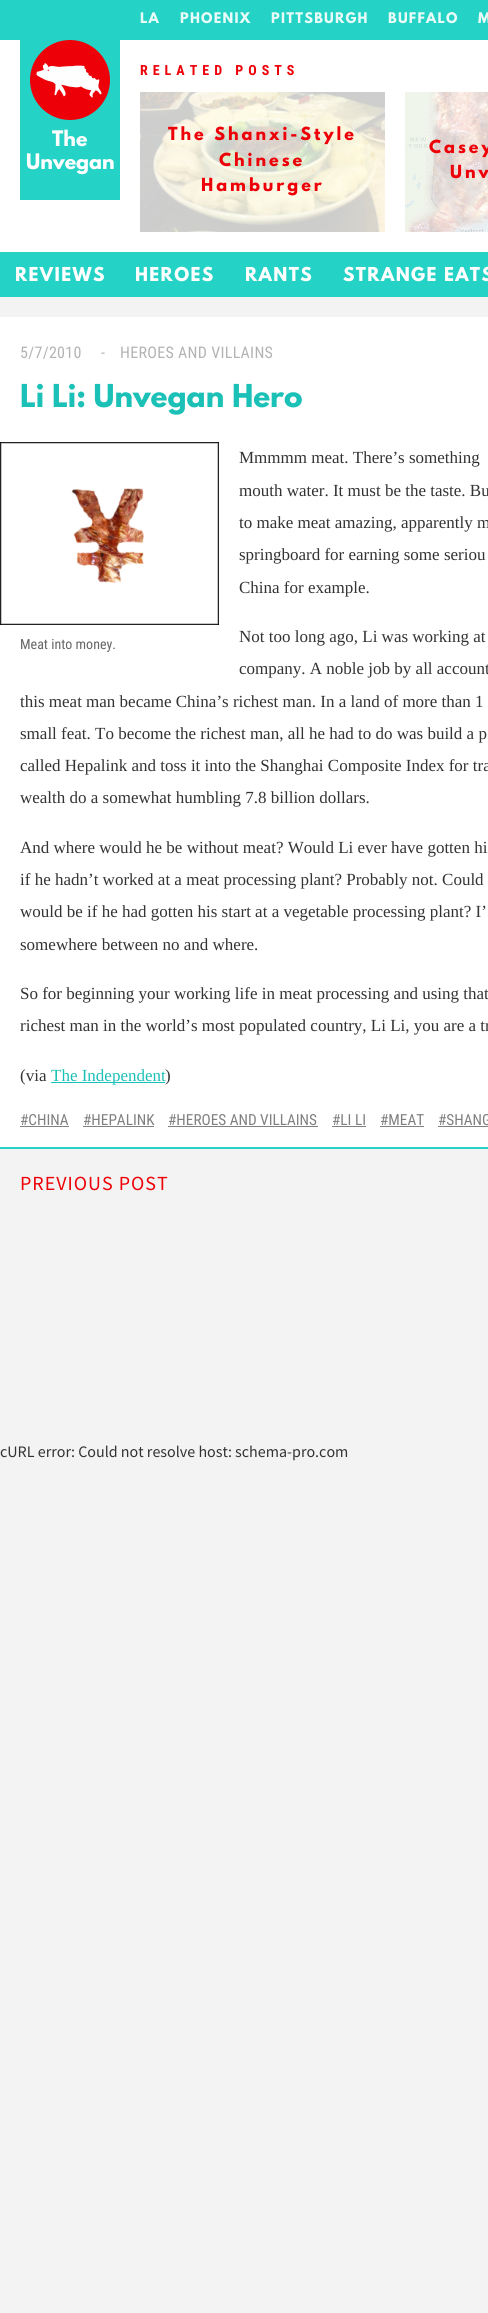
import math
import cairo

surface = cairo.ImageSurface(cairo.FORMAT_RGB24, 488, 2313)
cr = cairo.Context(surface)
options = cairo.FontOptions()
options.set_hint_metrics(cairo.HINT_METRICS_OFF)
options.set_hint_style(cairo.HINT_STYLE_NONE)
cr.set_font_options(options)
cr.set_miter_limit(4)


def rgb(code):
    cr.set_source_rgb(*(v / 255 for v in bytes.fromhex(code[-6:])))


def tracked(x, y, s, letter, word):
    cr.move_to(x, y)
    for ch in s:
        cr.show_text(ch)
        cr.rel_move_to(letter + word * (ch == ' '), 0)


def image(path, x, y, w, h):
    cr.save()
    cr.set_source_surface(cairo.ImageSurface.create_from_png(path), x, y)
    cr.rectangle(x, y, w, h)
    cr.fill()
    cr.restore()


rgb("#f3f3f3")
cr.paint()
for x, y, w, h, color in [
    (0, 0, 488, 40, "#24d3c5"),
    (0, 40, 488, 212, "#ffffff"),
    (20, 40, 100, 160, "#24d3c5"),
]:
    rgb(color)
    cr.rectangle(x, y, w, h)
    cr.fill()
image("img/1.png", 30, 40, 80, 80)
image("img/2.png", 140, 92, 245, 140)
image("img/3.png", 405, 92, 83, 140)
for x, y, w, h, color in [
    (0, 252, 488, 45, "#24d3c5"),
    (0, 317, 488, 830, "#ffffff"),
    (0, 1147, 488, 2, "#24d3c5"),
]:
    rgb(color)
    cr.rectangle(x, y, w, h)
    cr.fill()
image("img/4.png", 0, 442, 219, 183)
for x, y, w, h, color in [
    (51, 1082, 114, 1, "#1bc0b7"),
    (20, 1126, 49, 1, "#808080"),
    (83, 1126, 71, 1, "#808080"),
    (168, 1126, 150, 1, "#808080"),
    (332, 1126, 34, 1, "#808080"),
    (380, 1126, 44, 1, "#808080"),
    (438, 1126, 50, 1, "#808080"),
]:
    rgb(color)
    cr.rectangle(x, y, w, h)
    cr.fill()
cr.select_font_face("League Spartan", cairo.FONT_SLANT_NORMAL, cairo.FONT_WEIGHT_BOLD)
cr.set_font_size(13)
rgb("#e9fbf9")
for x, y, s in [
    (140, 23, "LA"),
    (180, 23, "PHOENIX"),
    (271, 23, "PITTSBURGH"),
    (388, 23, "BUFFALO"),
    (478, 23, "M"),
]:
    tracked(x, y, s, 1.25, 0)
cr.set_font_size(19)
rgb("#ffffff")
cr.move_to(52, 146)
cr.show_text("The")
cr.move_to(26, 169)
cr.show_text("Unvegan")
cr.select_font_face("Roboto Condensed", cairo.FONT_SLANT_NORMAL, cairo.FONT_WEIGHT_BOLD)
cr.set_font_size(14)
rgb("#ed0007")
tracked(140, 75, "RELATED POSTS", 5, 0)
cr.select_font_face("League Spartan", cairo.FONT_SLANT_NORMAL, cairo.FONT_WEIGHT_BOLD)
cr.set_font_size(16)
for x, y, s in [
    (168, 140, "The Shanxi-Style"),
    (219, 166, "Chinese"),
    (201, 191, "Hamburger"),
    (429, 153, "Casey"),
    (450, 178, "Unv"),
]:
    tracked(x, y, s, 3, 0)
cr.set_font_size(17)
rgb("#ffffff")
for x, y, s in [
    (15, 281, "REVIEWS"),
    (135, 281, "HEROES"),
    (245, 281, "RANTS"),
    (343, 281, "STRANGE EATS"),
]:
    tracked(x, y, s, 1.4, 0)
cr.select_font_face("Roboto Condensed")
cr.set_font_size(16)
rgb("#b3b3b3")
for x, y, s in [
    (20, 358, "5/7/2010"),
    (101, 358, "-"),
    (120, 358, "HEROES AND VILLAINS"),
]:
    tracked(x, y, s, 0.3, 0)
cr.select_font_face("League Spartan", cairo.FONT_SLANT_NORMAL, cairo.FONT_WEIGHT_BOLD)
cr.set_font_size(28)
rgb("#1bc0b7")
cr.move_to(20, 407)
cr.show_text("Li Li: Unvegan Hero")
cr.select_font_face("Liberation Serif")
cr.set_font_size(17)
rgb("#333333")
for x, y, s in [
    (239, 463, "Mmmmm meat. There’s something"),
    (239, 496, "mouth water. It must be the taste. Bu"),
    (239, 528, "to make meat amazing, apparently m"),
    (239, 560, "springboard for earning some seriou"),
    (239, 593, "China for example."),
    (239, 642, "Not too long ago, Li was working at"),
    (239, 674, "company. A noble job by all account"),
    (20, 707, "this meat man became China’s richest man. In a land of more than 1"),
    (20, 739, "small feat. To become the richest man, all he had to do was build a p"),
    (20, 771, "called Hepalink and toss it into the Shanghai Composite Index for tra"),
    (20, 803, "wealth do a somewhat humbling 7.8 billion dollars."),
]:
    cr.move_to(x, y)
    cr.show_text(s)
cr.select_font_face("Roboto Condensed")
cr.set_font_size(14)
rgb("#666666")
cr.move_to(20, 649)
cr.show_text("Meat into money.")
cr.select_font_face("Liberation Serif")
cr.set_font_size(17)
rgb("#333333")
for x, y, s in [
    (20, 853, "And where would he be without meat? Would Li ever have gotten hi"),
    (20, 885, "if he hadn’t worked at a meat processing plant? Probably not. Could"),
    (20, 917, "would be if he had gotten his start at a vegetable processing plant? I’"),
    (20, 950, "somewhere between no and where."),
    (20, 999, "So for beginning your working life in meat processing and using that"),
    (20, 1031, "richest man in the world’s most populated country, Li Li, you are a tr"),
    (20, 1081, "(via"),
]:
    cr.move_to(x, y)
    cr.show_text(s)
rgb("#1bc0b7")
cr.move_to(51, 1081)
cr.show_text("The Independent")
rgb("#333333")
cr.move_to(165, 1081)
cr.show_text(")")
cr.select_font_face("Roboto Condensed")
cr.set_font_size(15.25)
rgb("#808080")
for x, y, s in [
    (20, 1125, "#CHINA"),
    (83, 1125, "#HEPALINK"),
    (168, 1125, "#HEROES AND VILLAINS"),
    (332, 1125, "#LI LI"),
    (380, 1125, "#MEAT"),
    (438, 1125, "#SHANG"),
]:
    cr.move_to(x, y)
    cr.show_text(s)
cr.select_font_face("Source Sans Pro")
cr.set_font_size(20)
rgb("#ed0007")
tracked(20, 1190, "PREVIOUS POST", 1, 0)
cr.set_font_size(16)
rgb("#333333")
cr.move_to(0, 1457)
cr.show_text("cURL error: Could not resolve host: schema-pro.com")
surface.write_to_png("page.png")
